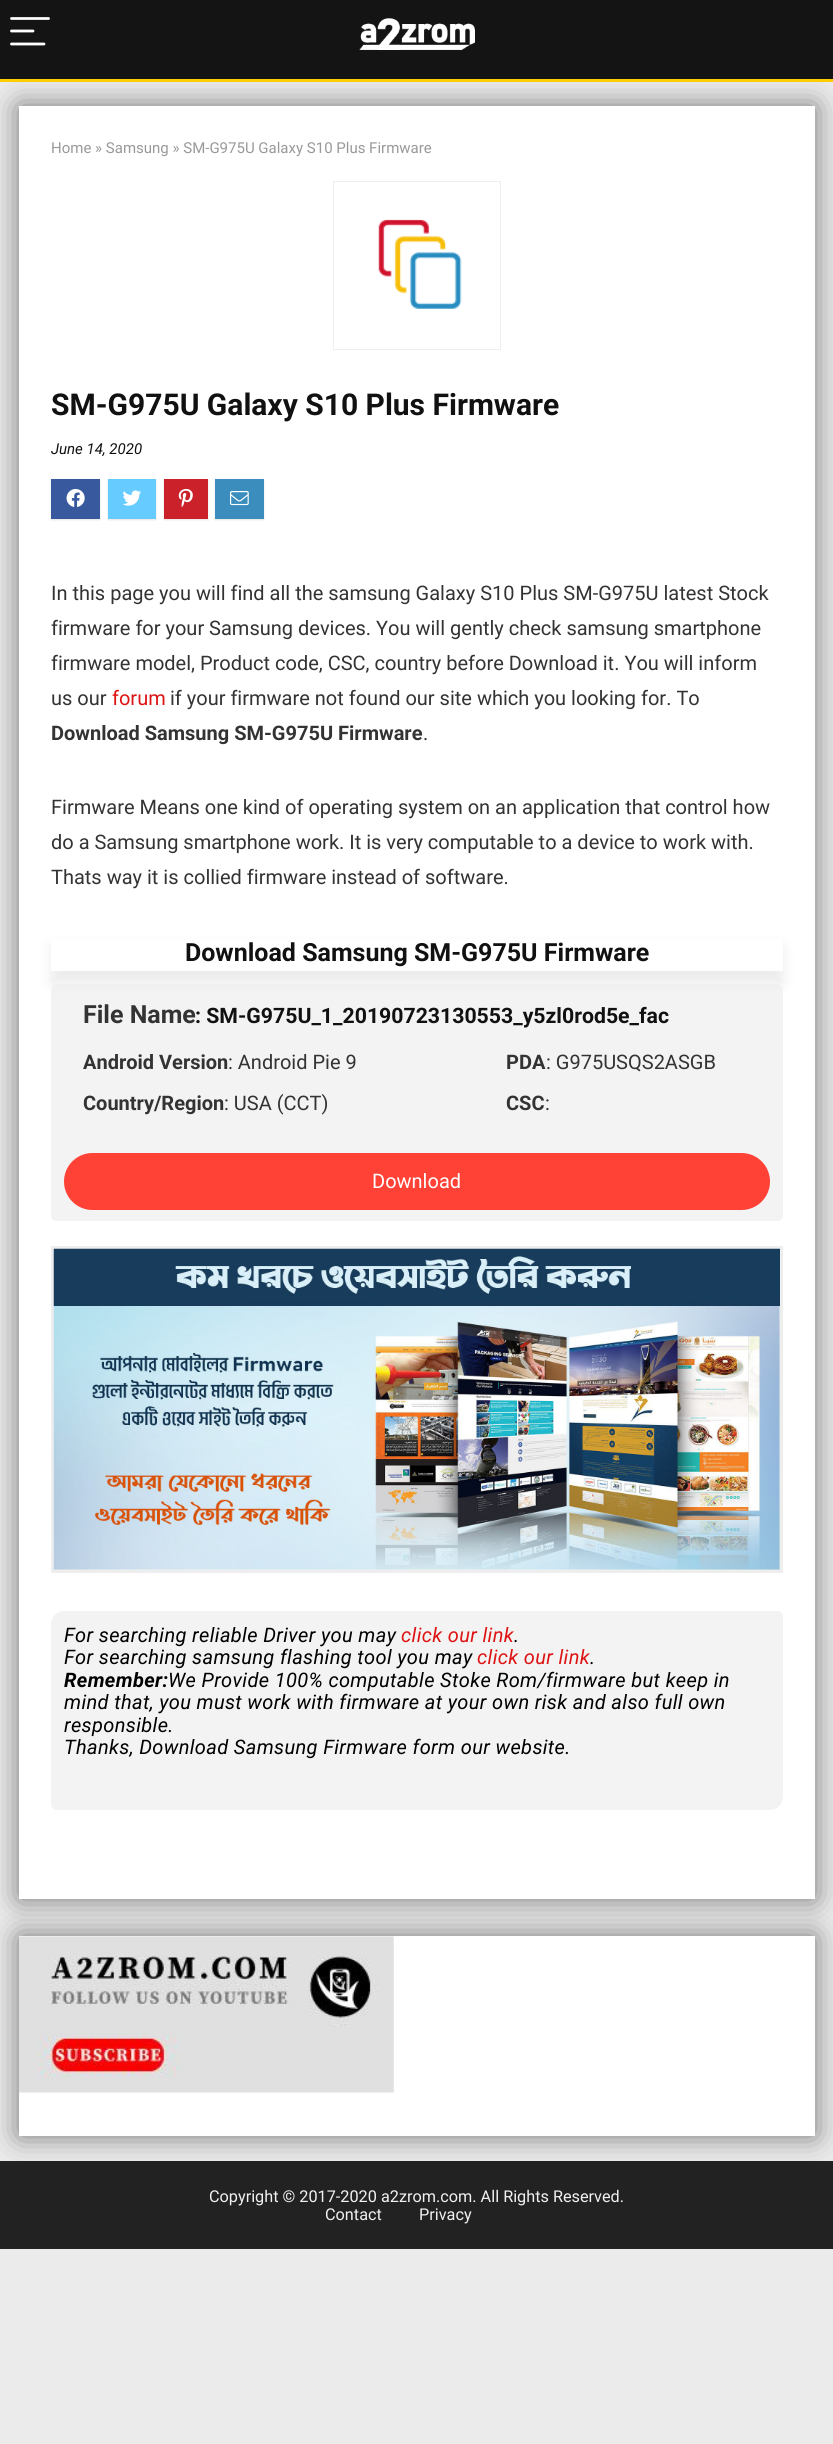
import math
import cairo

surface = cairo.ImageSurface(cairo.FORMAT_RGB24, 833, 2444)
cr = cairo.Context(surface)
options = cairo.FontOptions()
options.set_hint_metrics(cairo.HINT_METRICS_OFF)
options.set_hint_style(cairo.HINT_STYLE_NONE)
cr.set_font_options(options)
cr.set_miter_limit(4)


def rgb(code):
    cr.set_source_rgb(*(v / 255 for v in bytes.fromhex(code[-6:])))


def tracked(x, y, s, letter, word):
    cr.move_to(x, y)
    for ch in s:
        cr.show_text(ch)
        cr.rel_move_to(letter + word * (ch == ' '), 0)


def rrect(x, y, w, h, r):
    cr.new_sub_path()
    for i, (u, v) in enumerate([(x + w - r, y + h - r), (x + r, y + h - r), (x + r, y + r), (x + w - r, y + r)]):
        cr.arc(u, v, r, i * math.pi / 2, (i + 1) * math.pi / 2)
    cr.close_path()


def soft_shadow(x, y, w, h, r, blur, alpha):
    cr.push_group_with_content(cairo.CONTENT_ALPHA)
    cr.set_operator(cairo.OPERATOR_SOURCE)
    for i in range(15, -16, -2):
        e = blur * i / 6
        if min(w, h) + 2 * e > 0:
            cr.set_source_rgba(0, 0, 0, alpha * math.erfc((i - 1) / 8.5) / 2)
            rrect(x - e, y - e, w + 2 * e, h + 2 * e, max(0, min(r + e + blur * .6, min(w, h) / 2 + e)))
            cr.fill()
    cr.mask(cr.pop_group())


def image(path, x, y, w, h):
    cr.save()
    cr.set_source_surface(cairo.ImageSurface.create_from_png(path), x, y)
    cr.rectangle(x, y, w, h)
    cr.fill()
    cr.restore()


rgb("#ebebeb")
cr.paint()
rgb("#222222")
cr.rectangle(0, 2161, 833, 88)
cr.fill()
rgb("#000000")
soft_shadow(19, 1936, 796, 200, 0, 15, 0.5)
rgb("#ffffff")
cr.rectangle(19, 1936, 796, 200)
cr.fill()
image("img/8.png", 19, 1936, 375, 157)
rgb("#000000")
soft_shadow(19, 106, 796, 1793, 0, 15, 0.5)
rgb("#141414")
cr.rectangle(0, 0, 833, 79)
cr.fill()
rgb("#ffcc00")
cr.rectangle(0, 79, 833, 3)
cr.fill()
cr.new_path()
cr.move_to(11.5, 18.5)
cr.line_to(48.5, 18.5)
cr.move_to(11.5, 31)
cr.line_to(33, 31)
cr.move_to(11.5, 44)
cr.line_to(44, 44)
rgb("#ffffff")
cr.set_line_width(2.8)
cr.set_line_cap(cairo.LINE_CAP_ROUND)
cr.stroke()
image("img/1.png", 359, 18, 116, 32)
cr.rectangle(19, 106, 796, 1793)
cr.fill()
cr.rectangle(333.5, 181.5, 167, 168)
rgb("#eeeeee")
cr.set_line_width(1)
cr.set_line_cap(cairo.LINE_CAP_BUTT)
cr.stroke()
image("img/2.png", 378, 219, 84, 90)
rgb("#e4e4e4")
soft_shadow(51, 480, 49, 40, 0, 1, 1)
rgb("#39599f")
cr.rectangle(51, 479, 49, 40)
cr.fill()
image("img/3.png", 66, 489, 19, 18)
rgb("#e4e4e4")
soft_shadow(108, 480, 48, 40, 0, 1, 1)
rgb("#66ccff")
cr.rectangle(108, 479, 48, 40)
cr.fill()
image("img/4.png", 122, 490, 20, 16)
rgb("#e4e4e4")
soft_shadow(164, 480, 44, 40, 0, 1, 1)
rgb("#ca212a")
cr.rectangle(164, 479, 44, 40)
cr.fill()
image("img/5.png", 178, 488, 15, 20)
rgb("#e4e4e4")
soft_shadow(215, 480, 49, 40, 0, 1, 1)
rgb("#3b8dbd")
cr.rectangle(215, 479, 49, 40)
cr.fill()
image("img/6.png", 230, 491, 19, 15)
rgb("#ececec")
soft_shadow(51, 946, 732, 38, 0, 6, 1)
rgb("#ffffff")
cr.rectangle(51, 939, 732, 32)
cr.fill()
cr.set_source_rgba(0.933, 0.933, 0.933, 0.69)
rrect(51, 984, 732, 237, 6)
cr.fill()
rgb("#ff4136")
rrect(64, 1153, 706, 57, 28.5)
cr.fill()
cr.rectangle(52.5, 1247.5, 729, 324)
rgb("#eeeeee")
cr.set_line_width(3)
cr.stroke()
image("img/7.png", 53, 1248, 727, 322)
rgb("#f3f3f3")
cr.new_path()
cr.move_to(64, 1611)
cr.line_to(777, 1611)
cr.curve_to(780.5, 1611, 783, 1613.5, 783, 1617)
cr.line_to(783, 1797)
cr.curve_to(783, 1804, 777, 1810, 770, 1810)
cr.line_to(57, 1810)
cr.curve_to(53.5, 1810, 51, 1807.5, 51, 1804)
cr.line_to(51, 1624)
cr.curve_to(51, 1617, 57, 1611, 64, 1611)
cr.close_path()
cr.fill()
cr.select_font_face("Roboto")
cr.set_font_size(15)
rgb("#999999")
cr.move_to(51, 153)
cr.show_text("Home » Samsung » SM-G975U Galaxy S10 Plus Firmware")
cr.select_font_face("Roboto", cairo.FONT_SLANT_NORMAL, cairo.FONT_WEIGHT_BOLD)
cr.set_font_size(30)
rgb("#111111")
cr.move_to(51, 415)
cr.show_text("SM-G975U Galaxy S10 Plus Firmware")
cr.select_font_face("Roboto", cairo.FONT_SLANT_ITALIC)
cr.set_font_size(15)
cr.move_to(51, 454)
cr.show_text("June 14, 2020")
cr.select_font_face("Roboto")
cr.set_font_size(20)
rgb("#333333")
for x, y, s in [
    (51, 600, "In this page you will find all the samsung Galaxy S10 Plus SM-G975U latest Stock"),
    (51, 635, "firmware for your Samsung devices. You will gently check samsung smartphone"),
    (51, 670, "firmware model, Product code, CSC, country before Download it. You will inform"),
    (51, 705, "us our"),
]:
    cr.move_to(x, y)
    cr.show_text(s)
rgb("#de1414")
cr.move_to(112, 705)
cr.show_text("forum")
rgb("#333333")
cr.move_to(170, 705)
cr.show_text("if your firmware not found our site which you looking for. To")
cr.select_font_face("Roboto", cairo.FONT_SLANT_NORMAL, cairo.FONT_WEIGHT_BOLD)
cr.move_to(51, 740)
cr.show_text("Download Samsung SM-G975U Firmware")
cr.select_font_face("Roboto")
for x, y, s in [
    (423, 740, "."),
    (51, 814, "Firmware Means one kind of operating system on an application that control how"),
    (51, 849, "do a Samsung smartphone work. It is very computable to a device to work with."),
    (51, 884, "Thats way it is collied firmware instead of software."),
]:
    cr.move_to(x, y)
    cr.show_text(s)
cr.select_font_face("Roboto", cairo.FONT_SLANT_NORMAL, cairo.FONT_WEIGHT_BOLD)
cr.set_font_size(25)
rgb("#111111")
cr.move_to(185, 961)
cr.show_text("Download Samsung SM-G975U Firmware")
rgb("#333333")
cr.move_to(83, 1023)
cr.show_text("File Name")
cr.set_font_size(21.25)
rgb("#111111")
cr.move_to(195, 1023)
cr.show_text(": SM-G975U_1_20190723130553_y5zl0rod5e_fac")
cr.set_font_size(20)
rgb("#333333")
cr.move_to(83, 1069)
cr.show_text("Android Version")
cr.select_font_face("Roboto")
cr.move_to(228, 1069)
cr.show_text(": Android Pie 9")
cr.select_font_face("Roboto", cairo.FONT_SLANT_NORMAL, cairo.FONT_WEIGHT_BOLD)
cr.move_to(83, 1110)
cr.show_text("Country/Region")
cr.select_font_face("Roboto")
cr.move_to(224, 1110)
cr.show_text(": USA (CCT)")
cr.select_font_face("Roboto", cairo.FONT_SLANT_NORMAL, cairo.FONT_WEIGHT_BOLD)
cr.move_to(506, 1069)
cr.show_text("PDA")
cr.select_font_face("Roboto")
cr.move_to(546, 1069)
cr.show_text(": G975USQS2ASGB")
cr.select_font_face("Roboto", cairo.FONT_SLANT_NORMAL, cairo.FONT_WEIGHT_BOLD)
cr.move_to(506, 1110)
cr.show_text("CSC")
cr.select_font_face("Roboto")
cr.move_to(545, 1110)
cr.show_text(":")
rgb("#ffffff")
cr.move_to(372, 1188)
cr.show_text("Download")
cr.select_font_face("Roboto", cairo.FONT_SLANT_ITALIC)
rgb("#000000")
tracked(64, 1642, "For searching reliable Driver you may", 0.38, 0)
rgb("#de1414")
tracked(401, 1642, "click our link", 0.38, 0)
rgb("#000000")
tracked(514, 1642, ".", 0.38, 0)
tracked(64, 1664, "For searching samsung flashing tool you may", 0.38, 0)
rgb("#de1414")
tracked(477, 1664, "click our link", 0.38, 0)
rgb("#000000")
tracked(590, 1664, ".", 0.38, 0)
cr.select_font_face("Roboto", cairo.FONT_SLANT_ITALIC, cairo.FONT_WEIGHT_BOLD)
tracked(64, 1687, "Remember:", 0.38, 0)
cr.select_font_face("Roboto", cairo.FONT_SLANT_ITALIC)
for x, y, s in [
    (168, 1687, "We Provide 100% computable Stoke Rom/firmware but keep in"),
    (64, 1709, "mind that, you must work with firmware at your own risk and also full own"),
    (64, 1732, "responsible."),
    (64, 1754, "Thanks, Download Samsung Firmware form our website."),
]:
    tracked(x, y, s, 0.38, 0)
cr.select_font_face("Roboto")
cr.set_font_size(16.25)
rgb("#f1f1f1")
for x, y, s in [
    (209, 2202, "Copyright © 2017-2020 a2zrom.com. All Rights Reserved."),
    (325, 2220, "Contact"),
    (419, 2220, "Privacy"),
]:
    cr.move_to(x, y)
    cr.show_text(s)
surface.write_to_png("page.png")
